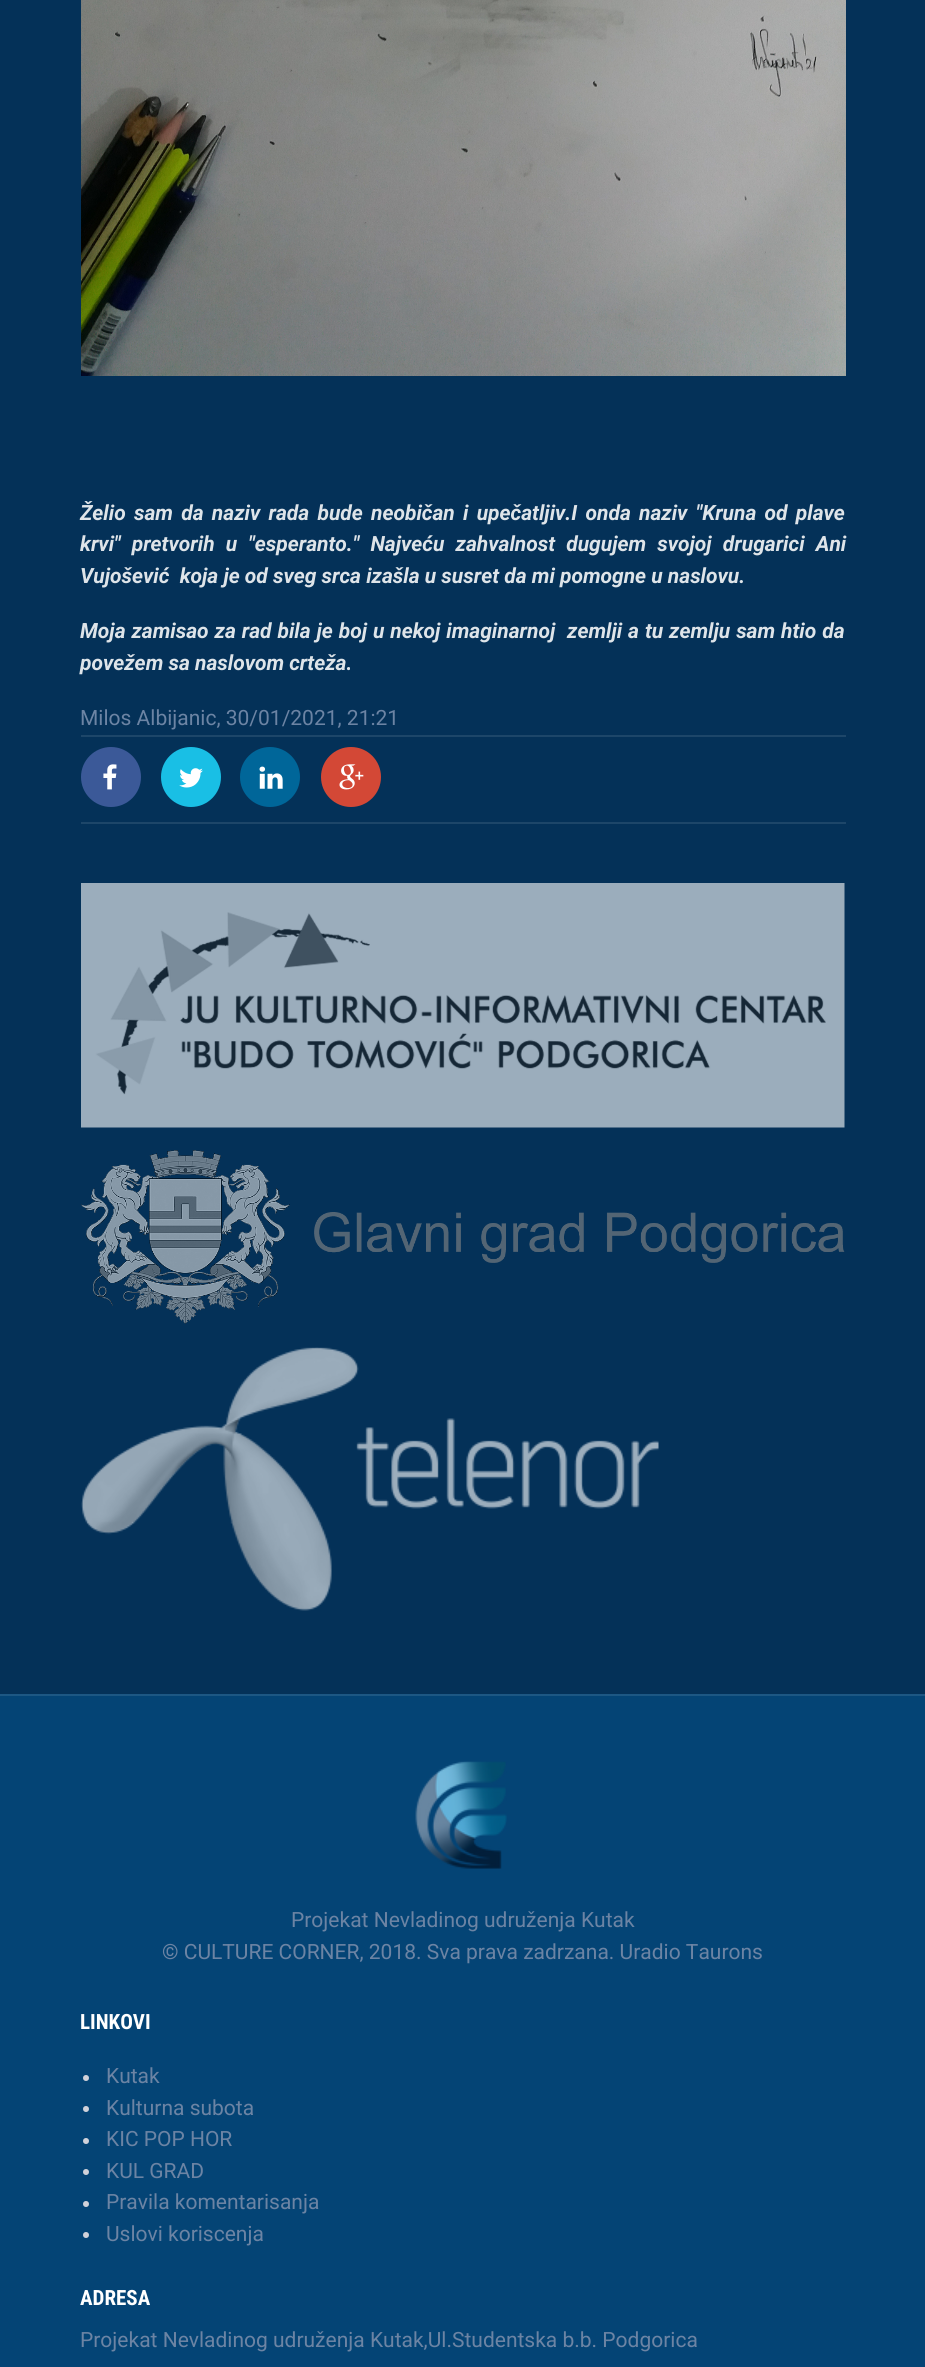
import math
import cairo

surface = cairo.ImageSurface(cairo.FORMAT_RGB24, 925, 2367)
cr = cairo.Context(surface)
options = cairo.FontOptions()
options.set_hint_metrics(cairo.HINT_METRICS_OFF)
options.set_hint_style(cairo.HINT_STYLE_NONE)
cr.set_font_options(options)
cr.set_miter_limit(4)


def rgb(code):
    cr.set_source_rgb(*(v / 255 for v in bytes.fromhex(code[-6:])))


def tracked(x, y, s, letter, word):
    cr.move_to(x, y)
    for ch in s:
        cr.show_text(ch)
        cr.rel_move_to(letter + word * (ch == ' '), 0)


def image(path, x, y, w, h):
    cr.save()
    cr.set_source_surface(cairo.ImageSurface.create_from_png(path), x, y)
    cr.rectangle(x, y, w, h)
    cr.fill()
    cr.restore()


rgb("#043158")
cr.paint()
image("img/1.png", 81, 0, 765, 376)
rgb("#1d4669")
cr.rectangle(81, 735, 765, 2)
cr.fill()
cr.rectangle(81, 822, 765, 2)
cr.fill()
rgb("#3b5998")
cr.arc(111, 777, 30, 0, 2 * math.pi)
cr.fill()
image("img/2.png", 103, 764, 14, 26)
rgb("#19bfe5")
cr.arc(191, 777, 30, 0, 2 * math.pi)
cr.fill()
image("img/3.png", 179, 768, 24, 20)
rgb("#006699")
cr.arc(270, 777, 30, 0, 2 * math.pi)
cr.fill()
image("img/4.png", 259, 766, 24, 23)
rgb("#d34836")
cr.arc(351, 777, 30, 0, 2 * math.pi)
cr.fill()
image("img/5.png", 339, 764, 25, 26)
image("img/6.png", 81, 883, 764, 245)
image("img/7.png", 81, 1150, 764, 174)
image("img/8.png", 81, 1347, 578, 264)
rgb("#044475")
cr.rectangle(0, 1696, 925, 671)
cr.fill()
rgb("#1d5783")
cr.rectangle(0, 1694, 925, 2)
cr.fill()
image("img/9.png", 415, 1761, 92, 108)
rgb("#d1d2da")
cr.arc(86, 2078, 3, 0, 2 * math.pi)
cr.fill()
cr.arc(86, 2109, 3, 0, 2 * math.pi)
cr.fill()
cr.arc(86, 2141, 3, 0, 2 * math.pi)
cr.fill()
cr.arc(86, 2172, 3, 0, 2 * math.pi)
cr.fill()
cr.arc(86, 2204, 3, 0, 2 * math.pi)
cr.fill()
cr.arc(86, 2235, 3, 0, 2 * math.pi)
cr.fill()
cr.select_font_face("Roboto", cairo.FONT_SLANT_ITALIC, cairo.FONT_WEIGHT_BOLD)
cr.set_font_size(21)
rgb("#dee4e9")
tracked(80, 520, "Želio sam da naziv rada bude neobičan i upečatljiv.I onda naziv \"Kruna od plave", 0, 3.1)
tracked(80, 551, "krvi\" pretvorih u \"esperanto.\" Najveću zahvalnost dugujem svojoj drugarici Ani", 0, 6)
cr.move_to(80, 583)
cr.show_text("Vujošević  koja je od sveg srca izašla u susret da mi pomogne u naslovu.")
tracked(80, 638, "Moja zamisao za rad bila je boj u nekoj imaginarnoj  zemlji a tu zemlju sam htio da", 0, 0.75)
cr.move_to(80, 670)
cr.show_text("povežem sa naslovom crteža.")
cr.select_font_face("Roboto")
rgb("#6c84a4")
for x, y, s in [
    (80, 725, "Milos Albijanic, 30/01/2021, 21:21"),
    (291, 1927, "Projekat Nevladinog udruženja Kutak"),
    (162, 1959, "© CULTURE CORNER, 2018. Sva prava zadrzana. Uradio Taurons"),
]:
    cr.move_to(x, y)
    cr.show_text(s)
cr.select_font_face("Roboto Condensed", cairo.FONT_SLANT_NORMAL, cairo.FONT_WEIGHT_BOLD)
rgb("#ffffff")
cr.move_to(80, 2029)
cr.show_text("LINKOVI")
cr.select_font_face("Roboto")
rgb("#6c84a4")
for x, y, s in [
    (106, 2083, "Kutak"),
    (106, 2115, "Kulturna subota"),
    (106, 2146, "KIC POP HOR"),
    (106, 2178, "KUL GRAD"),
    (106, 2209, "Pravila komentarisanja"),
    (106, 2241, "Uslovi koriscenja"),
]:
    cr.move_to(x, y)
    cr.show_text(s)
cr.select_font_face("Roboto Condensed", cairo.FONT_SLANT_NORMAL, cairo.FONT_WEIGHT_BOLD)
rgb("#ffffff")
cr.move_to(80, 2305)
cr.show_text("ADRESA")
cr.select_font_face("Roboto")
rgb("#6c84a4")
cr.move_to(80, 2347)
cr.show_text("Projekat Nevladinog udruženja Kutak,Ul.Studentska b.b. Podgorica")
surface.write_to_png("page.png")
